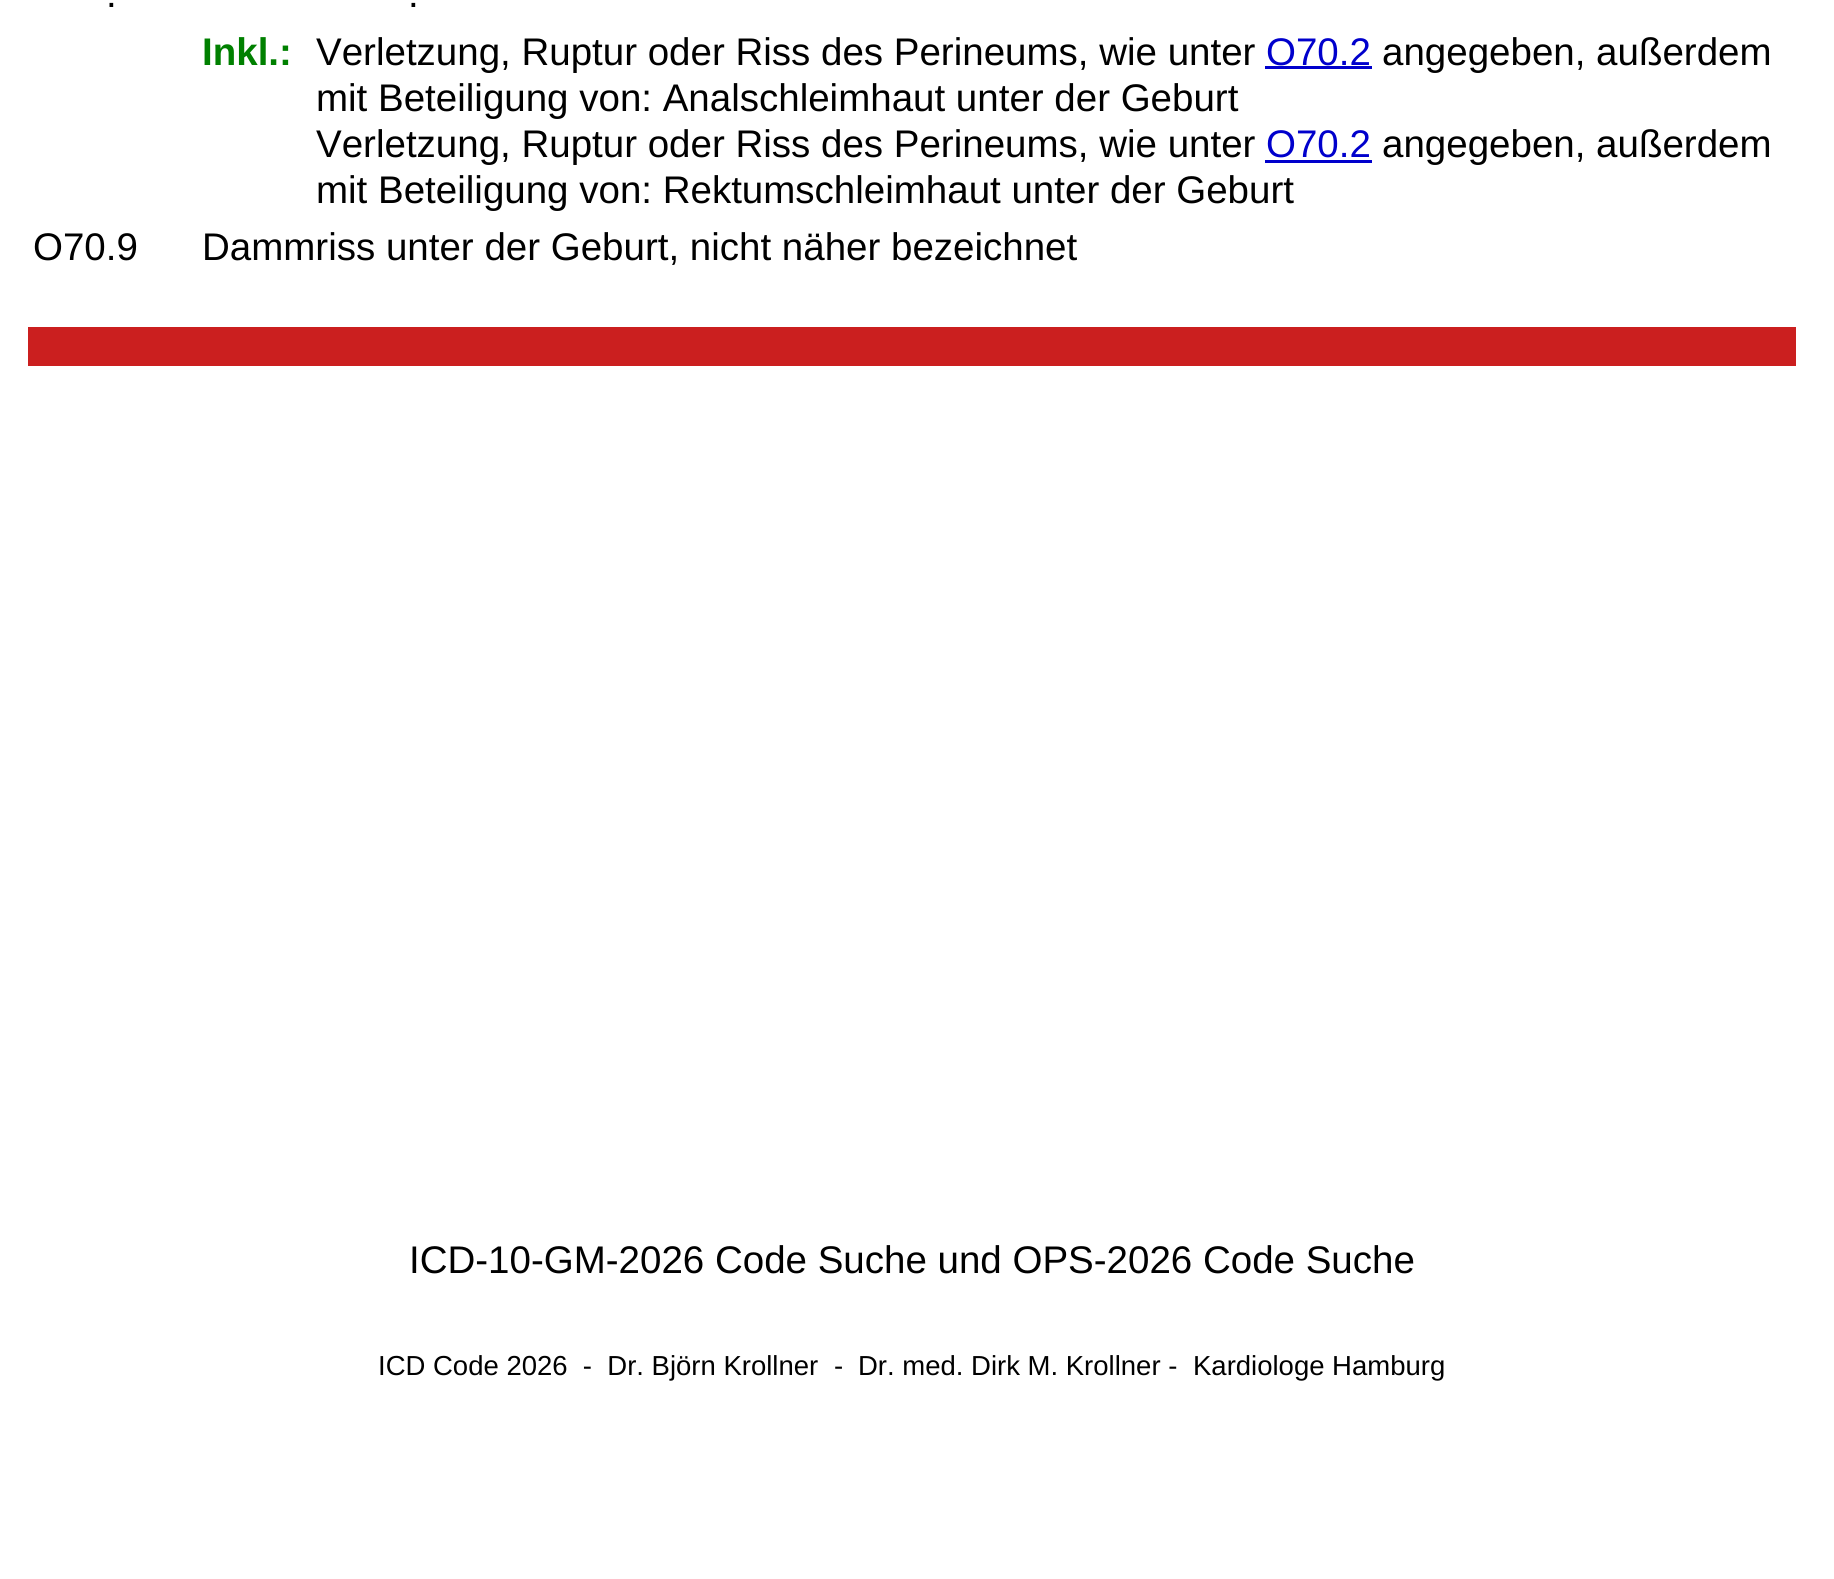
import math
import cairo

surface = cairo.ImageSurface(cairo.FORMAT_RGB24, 1834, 1579)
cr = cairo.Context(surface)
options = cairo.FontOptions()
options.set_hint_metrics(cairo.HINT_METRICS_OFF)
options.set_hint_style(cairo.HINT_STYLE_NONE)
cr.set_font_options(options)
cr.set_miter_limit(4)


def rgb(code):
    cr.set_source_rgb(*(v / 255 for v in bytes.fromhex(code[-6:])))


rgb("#ffffff")
cr.paint()
for x, y, w, h, color in [
    (1265, 66, 107, 3, "#0000cc"),
    (1265, 160, 107, 3, "#0000cc"),
    (28, 327, 1768, 39, "#cb1f1f"),
]:
    rgb(color)
    cr.rectangle(x, y, w, h)
    cr.fill()
cr.select_font_face("Liberation Sans")
cr.set_font_size(38.5)
rgb("#000000")
cr.move_to(106, 7)
cr.show_text(".")
cr.move_to(408, 7)
cr.show_text(".")
cr.select_font_face("Liberation Sans", cairo.FONT_SLANT_NORMAL, cairo.FONT_WEIGHT_BOLD)
rgb("#008000")
cr.move_to(202, 65)
cr.show_text("Inkl.:")
cr.select_font_face("Liberation Sans")
rgb("#000000")
cr.move_to(316, 65)
cr.show_text("Verletzung, Ruptur oder Riss des Perineums, wie unter")
rgb("#0000cc")
cr.move_to(1266, 65)
cr.show_text("O70.2")
rgb("#000000")
for x, y, s in [
    (1382, 65, "angegeben, außerdem"),
    (316, 111, "mit Beteiligung von: Analschleimhaut unter der Geburt"),
    (316, 157, "Verletzung, Ruptur oder Riss des Perineums, wie unter"),
]:
    cr.move_to(x, y)
    cr.show_text(s)
rgb("#0000cc")
cr.move_to(1266, 157)
cr.show_text("O70.2")
rgb("#000000")
for x, y, s in [
    (1382, 157, "angegeben, außerdem"),
    (316, 203, "mit Beteiligung von: Rektumschleimhaut unter der Geburt"),
    (33, 260, "O70.9"),
    (202, 260, "Dammriss unter der Geburt, nicht näher bezeichnet"),
    (409, 1273, "ICD-10-GM-2026 Code Suche und OPS-2026 Code Suche"),
]:
    cr.move_to(x, y)
    cr.show_text(s)
cr.set_font_size(27.5)
for x, y, s in [
    (378, 1375, "ICD Code 2026  -  Dr. Björn Krollner"),
    (834, 1375, "-"),
    (858, 1375, "Dr. med. Dirk M. Krollner -"),
    (1193, 1375, "Kardiologe Hamburg"),
]:
    cr.move_to(x, y)
    cr.show_text(s)
surface.write_to_png("page.png")
